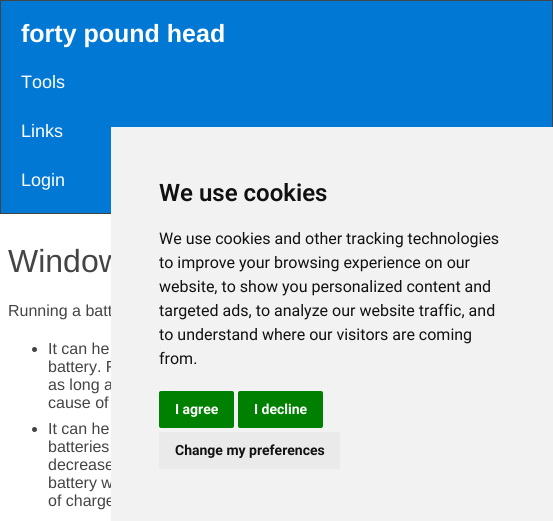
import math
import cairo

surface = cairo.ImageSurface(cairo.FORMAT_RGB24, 553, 521)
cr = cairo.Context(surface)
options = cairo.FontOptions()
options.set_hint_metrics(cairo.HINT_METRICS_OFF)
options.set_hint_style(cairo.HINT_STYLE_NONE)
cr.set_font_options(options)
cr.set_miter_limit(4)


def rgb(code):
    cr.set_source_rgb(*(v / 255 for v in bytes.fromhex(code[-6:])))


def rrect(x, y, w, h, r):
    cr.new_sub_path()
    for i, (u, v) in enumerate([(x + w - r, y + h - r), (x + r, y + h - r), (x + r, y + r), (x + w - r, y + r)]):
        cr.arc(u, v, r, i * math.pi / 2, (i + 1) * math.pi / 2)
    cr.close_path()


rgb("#ffffff")
cr.paint()
rgb("#0078d4")
cr.rectangle(0.5, 0.5, 552, 213)
cr.fill_preserve()
rgb("#444444")
cr.set_line_width(1)
cr.stroke()
cr.arc(34.5, 349.5, 2.5, 0, 2 * math.pi)
cr.fill()
cr.arc(34.5, 429.5, 2.5, 0, 2 * math.pi)
cr.fill()
cr.select_font_face("Liberation Sans", cairo.FONT_SLANT_NORMAL, cairo.FONT_WEIGHT_BOLD)
cr.set_font_size(25)
rgb("#ffffff")
cr.move_to(21, 42)
cr.show_text("forty pound head")
cr.select_font_face("Liberation Sans")
cr.set_font_size(18)
for x, y, s in [
    (21, 88, "Tools"),
    (21, 137, "Links"),
    (21, 186, "Login"),
]:
    cr.move_to(x, y)
    cr.show_text(s)
cr.set_font_size(32)
rgb("#444444")
cr.move_to(8, 272)
cr.show_text("Window")
cr.set_font_size(16)
for x, y, s in [
    (8, 316, "Running a batt"),
    (48, 354, "It can he"),
    (48, 372, "battery. F"),
    (48, 390, "as long a"),
    (48, 408, "cause of"),
    (48, 434, "It can he"),
    (48, 452, "batteries"),
    (48, 470, "decrease"),
    (48, 488, "battery w"),
    (48, 506, "of charge"),
]:
    cr.move_to(x, y)
    cr.show_text(s)
rgb("#f2f2f2")
cr.rectangle(111, 127, 442, 394)
cr.fill()
cr.select_font_face("Roboto SemiBold")
cr.set_font_size(24)
rgb("#111111")
cr.move_to(159, 201)
cr.show_text("We use cookies")
cr.select_font_face("Roboto")
cr.set_font_size(16)
for x, y, s in [
    (159, 244, "We use cookies and other tracking technologies"),
    (159, 268, "to improve your browsing experience on our"),
    (159, 292, "website, to show you personalized content and"),
    (159, 316, "targeted ads, to analyze our website traffic, and"),
    (159, 340, "to understand where our visitors are coming"),
    (159, 364, "from."),
]:
    cr.move_to(x, y)
    cr.show_text(s)
rgb("#008000")
rrect(159, 391, 75, 37, 2)
cr.fill()
cr.select_font_face("Roboto", cairo.FONT_SLANT_NORMAL, cairo.FONT_WEIGHT_BOLD)
cr.set_font_size(14)
rgb("#ffffff")
cr.move_to(175, 414)
cr.show_text("I agree")
rgb("#008000")
rrect(238, 391, 85, 37, 2)
cr.fill()
rgb("#ffffff")
cr.move_to(254, 414)
cr.show_text("I decline")
rgb("#eaeaea")
rrect(159, 432, 181, 37, 2)
cr.fill()
rgb("#111111")
cr.move_to(175, 455)
cr.show_text("Change my preferences")
surface.write_to_png("page.png")
